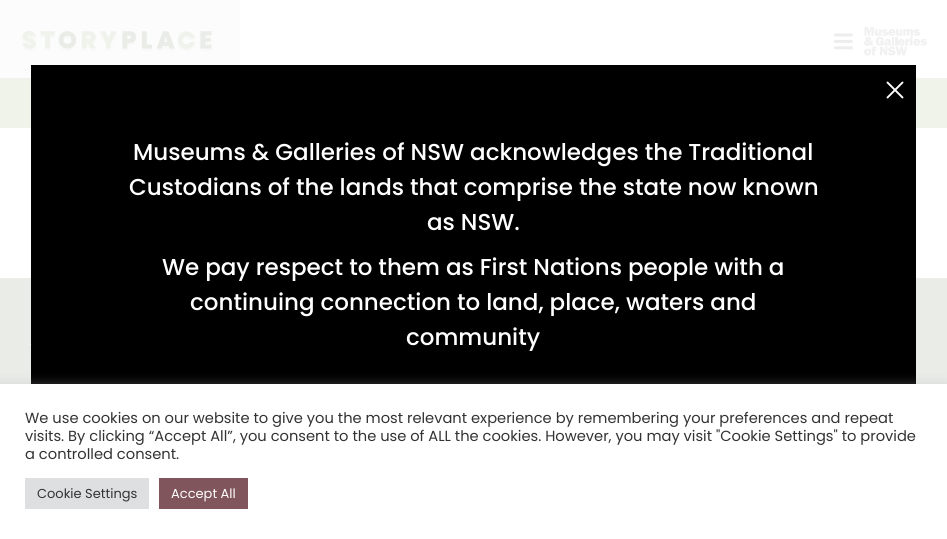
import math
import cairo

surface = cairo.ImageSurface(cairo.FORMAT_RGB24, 947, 539)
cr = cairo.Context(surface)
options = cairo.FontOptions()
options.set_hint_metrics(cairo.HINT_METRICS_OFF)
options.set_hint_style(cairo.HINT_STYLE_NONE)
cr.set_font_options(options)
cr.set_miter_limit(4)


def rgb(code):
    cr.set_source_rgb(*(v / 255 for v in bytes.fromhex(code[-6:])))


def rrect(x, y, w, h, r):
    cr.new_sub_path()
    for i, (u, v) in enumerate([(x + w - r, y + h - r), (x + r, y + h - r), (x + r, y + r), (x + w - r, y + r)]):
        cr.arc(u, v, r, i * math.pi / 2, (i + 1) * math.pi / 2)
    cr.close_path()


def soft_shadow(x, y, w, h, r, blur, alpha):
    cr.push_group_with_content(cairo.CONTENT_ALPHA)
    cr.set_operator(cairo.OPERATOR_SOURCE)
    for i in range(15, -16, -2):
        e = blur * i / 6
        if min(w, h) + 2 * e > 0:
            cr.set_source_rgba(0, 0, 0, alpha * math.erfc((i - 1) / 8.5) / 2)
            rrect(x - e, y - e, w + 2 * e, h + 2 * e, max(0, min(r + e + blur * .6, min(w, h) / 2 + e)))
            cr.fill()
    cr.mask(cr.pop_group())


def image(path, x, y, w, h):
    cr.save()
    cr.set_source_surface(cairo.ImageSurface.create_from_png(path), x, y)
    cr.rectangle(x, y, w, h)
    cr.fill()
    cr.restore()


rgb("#ffffff")
cr.paint()
rgb("#fcfcfc")
cr.rectangle(0, 0, 240, 78)
cr.fill()
image("img/1.png", 21, 31, 192, 21)
image("img/2.png", 833, 33, 20, 17)
image("img/3.png", 864, 27, 63, 29)
for x, y, w, h, color in [
    (0, 78, 947, 50, "#f0f3ea"),
    (0, 278, 947, 106, "#e9ece7"),
    (30, 344, 1, 1, "#ffffff"),
    (31, 65, 885, 319, "#000000"),
]:
    rgb(color)
    cr.rectangle(x, y, w, h)
    cr.fill()
cr.new_path()
cr.move_to(887.5, 97.5)
cr.line_to(902.5, 82.5)
cr.move_to(902.5, 97.5)
cr.line_to(887.5, 82.5)
rgb("#ffffff")
cr.set_line_width(1.9)
cr.set_line_cap(cairo.LINE_CAP_ROUND)
cr.set_line_join(cairo.LINE_JOIN_ROUND)
cr.stroke()
rgb("#acabab")
soft_shadow(0, 383, 947, 155, 0, 5, 0.3)
for x, y, w, h, color in [
    (0, 384, 947, 155, "#ffffff"),
    (25, 478, 124, 31, "#dedfe0"),
    (159, 478, 89, 31, "#80555b"),
]:
    rgb(color)
    cr.rectangle(x, y, w, h)
    cr.fill()
cr.select_font_face("Poppins Medium")
cr.set_font_size(23)
rgb("#ffffff")
for x, y, s in [
    (133, 160, "Museums & Galleries of NSW acknowledges the Traditional"),
    (129, 195, "Custodians of the lands that comprise the state now known"),
    (427, 230, "as NSW."),
    (162, 275, "We pay respect to them as First Nations people with a"),
    (190, 310, "continuing connection to land, place, waters and"),
    (406, 345, "community"),
]:
    cr.move_to(x, y)
    cr.show_text(s)
cr.select_font_face("Poppins")
cr.set_font_size(14.67)
rgb("#333333")
for x, y, s in [
    (25, 423, "We use cookies on our website to give you the most relevant experience by remembering your preferences and repeat"),
    (25, 441, "visits. By clicking “Accept All”, you consent to the use of ALL the cookies. However, you may visit \"Cookie Settings\" to provide"),
    (25, 459, "a controlled consent."),
]:
    cr.move_to(x, y)
    cr.show_text(s)
cr.set_font_size(13)
cr.move_to(37, 498)
cr.show_text("Cookie Settings")
rgb("#ffffff")
cr.move_to(171, 498)
cr.show_text("Accept All")
surface.write_to_png("page.png")
